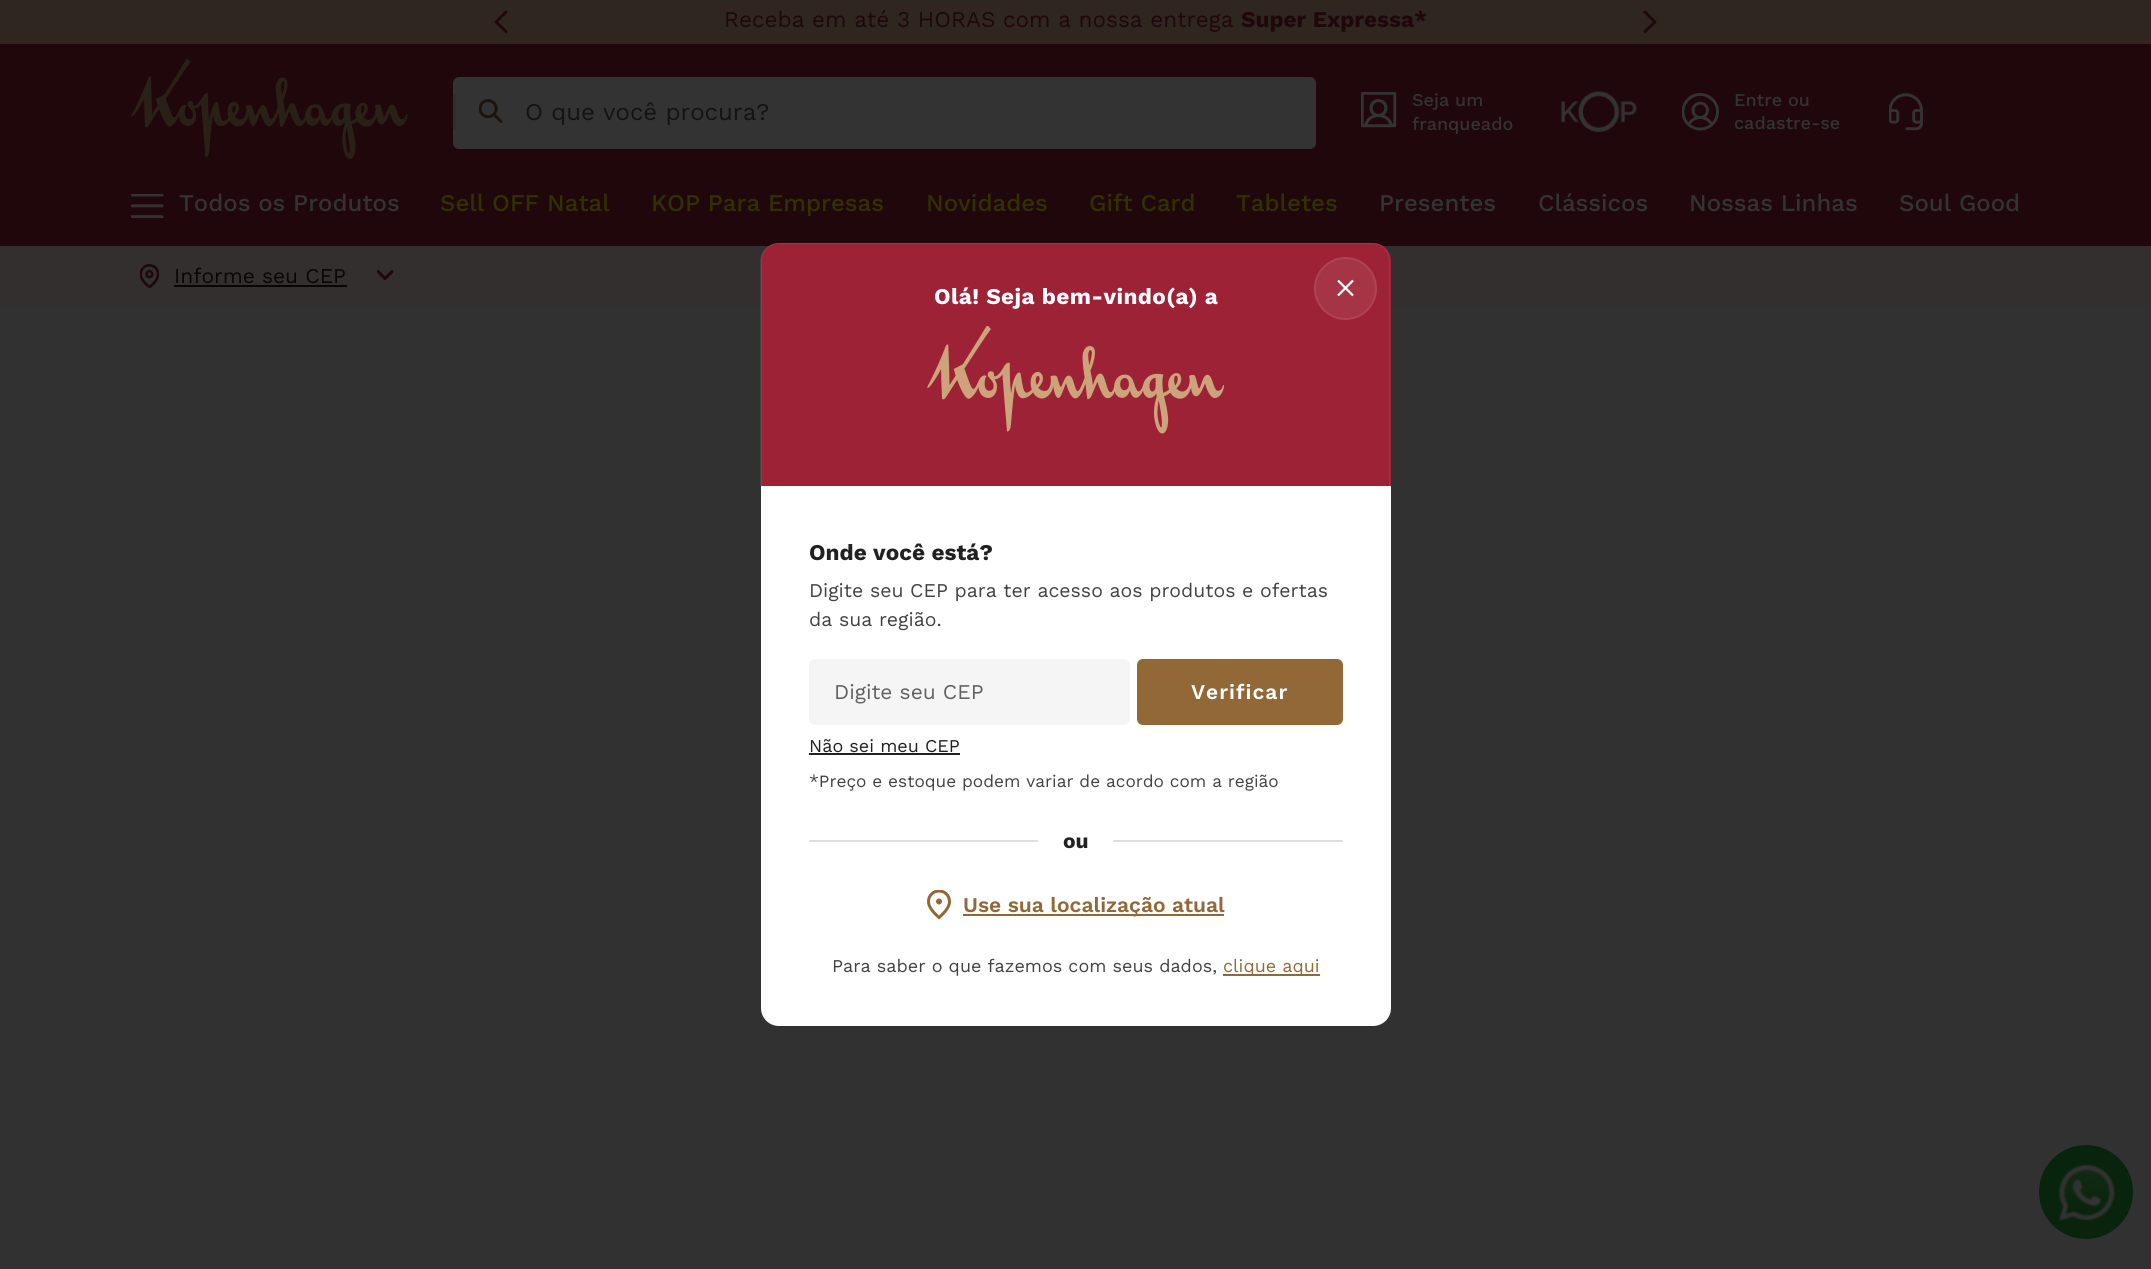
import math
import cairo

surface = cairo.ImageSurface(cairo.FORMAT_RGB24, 2151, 1269)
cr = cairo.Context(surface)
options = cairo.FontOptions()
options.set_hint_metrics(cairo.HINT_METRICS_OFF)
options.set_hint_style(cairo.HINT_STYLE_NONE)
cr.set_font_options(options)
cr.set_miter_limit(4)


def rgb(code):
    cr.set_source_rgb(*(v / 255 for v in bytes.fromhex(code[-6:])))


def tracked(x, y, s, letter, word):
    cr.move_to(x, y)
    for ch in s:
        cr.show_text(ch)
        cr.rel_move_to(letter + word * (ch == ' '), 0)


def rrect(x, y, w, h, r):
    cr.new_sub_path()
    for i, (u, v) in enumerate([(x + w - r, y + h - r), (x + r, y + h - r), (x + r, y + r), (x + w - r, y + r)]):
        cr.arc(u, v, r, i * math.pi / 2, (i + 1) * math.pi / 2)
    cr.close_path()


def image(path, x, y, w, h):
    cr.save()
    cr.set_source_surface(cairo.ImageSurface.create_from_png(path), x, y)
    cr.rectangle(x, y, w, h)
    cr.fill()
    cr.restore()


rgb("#313131")
cr.paint()
rgb("#2e261f")
cr.rectangle(0, 0, 2151, 44)
cr.fill()
cr.new_path()
cr.move_to(506, 12)
cr.line_to(496, 22)
cr.line_to(506, 31.5)
rgb("#1f070b")
cr.set_line_width(2.8)
cr.set_line_cap(cairo.LINE_CAP_ROUND)
cr.set_line_join(cairo.LINE_JOIN_ROUND)
cr.stroke()
cr.new_path()
cr.move_to(1645, 31.5)
cr.line_to(1655, 22)
cr.line_to(1645, 12)
cr.stroke()
cr.rectangle(0, 44, 2151, 202)
cr.fill()
image("img/1.png", 131, 59, 277, 100)
rgb("#333333")
rrect(453, 77, 863, 72, 6)
cr.fill()
rgb("#2d2e2e")
cr.rectangle(453, 95, 3, 34)
cr.fill()
image("img/2.png", 479, 99, 24, 24)
image("img/3.png", 1361, 92, 36, 36)
image("img/4.png", 1561, 91, 76, 41)
image("img/5.png", 1682, 93, 37, 38)
image("img/6.png", 1889, 93, 34, 38)
image("img/7.png", 131, 194, 33, 24)
rgb("#322f2e")
cr.rectangle(0, 246, 2151, 60)
cr.fill()
image("img/8.png", 140, 264, 19, 24)
rgb("#070707")
cr.rectangle(174, 285, 173, 2)
cr.fill()
image("img/9.png", 377, 270, 16, 10)
rgb("#08240d")
cr.arc(2086, 1192, 47, 0, 2 * math.pi)
cr.fill()
image("img/10.png", 2058, 1164, 58, 58)
rgb("#9d2235")
cr.new_path()
cr.move_to(779, 243)
cr.line_to(1373, 243)
cr.curve_to(1383, 243, 1391, 251, 1391, 261)
cr.line_to(1391, 486)
cr.line_to(761, 486)
cr.line_to(761, 261)
cr.curve_to(761, 251, 769, 243, 779, 243)
cr.close_path()
cr.fill()
cr.set_source_rgba(1, 1, 1, 0.08)
cr.set_fill_rule(cairo.FILL_RULE_EVEN_ODD)
cr.new_path()
cr.move_to(778, 243)
cr.line_to(1372, 243)
cr.curve_to(1382, 243, 1390, 251, 1390, 261)
cr.line_to(1390, 486)
cr.line_to(760, 486)
cr.line_to(760, 261)
cr.curve_to(760, 251, 769, 243, 778, 243)
cr.close_path()
cr.move_to(778, 244)
cr.line_to(1372, 244)
cr.curve_to(1382, 244, 1389, 252, 1389, 261)
cr.line_to(1389, 486)
cr.line_to(762, 486)
cr.line_to(762, 261)
cr.curve_to(762, 252, 769, 244, 778, 244)
cr.close_path()
cr.fill()
image("img/11.png", 927, 326, 297, 108)
rgb("#a53445")
cr.arc(1345.5, 288.5, 31.5, 0, 2 * math.pi)
cr.fill()
cr.arc(1345.5, 288.5, 30.5, 0, 2 * math.pi)
cr.set_source_rgba(1, 1, 1, 0.08)
cr.set_line_width(2)
cr.set_line_cap(cairo.LINE_CAP_BUTT)
cr.set_line_join(cairo.LINE_JOIN_MITER)
cr.stroke()
image("img/12.png", 1337, 279, 17, 18)
rgb("#ffffff")
cr.new_path()
cr.move_to(761, 486)
cr.line_to(1391, 486)
cr.line_to(1391, 1008)
cr.curve_to(1391, 1018, 1383, 1026, 1373, 1026)
cr.line_to(779, 1026)
cr.curve_to(769, 1026, 761, 1018, 761, 1008)
cr.close_path()
cr.fill()
rgb("#f5f5f5")
rrect(809, 659, 321, 66, 6)
cr.fill()
rgb("#212121")
cr.rectangle(809, 753, 151, 2)
cr.fill()
rgb("#926836")
rrect(1137, 659, 206, 66, 6)
cr.fill()
rgb("#e0e0e0")
cr.rectangle(809, 840, 229, 2)
cr.fill()
cr.rectangle(1113, 840, 230, 2)
cr.fill()
image("img/13.png", 927, 890, 24, 30)
rgb("#926836")
cr.rectangle(963, 914, 261, 2)
cr.fill()
cr.rectangle(1223, 974, 97, 2)
cr.fill()
cr.select_font_face("Work Sans")
cr.set_font_size(22.5)
rgb("#1f070b")
cr.move_to(724, 27)
cr.show_text("Receba em até 3 HORAS com a nossa entrega")
cr.select_font_face("Work Sans", cairo.FONT_SLANT_NORMAL, cairo.FONT_WEIGHT_BOLD)
cr.move_to(1241, 27)
cr.show_text("Super Expressa*")
cr.select_font_face("Work Sans")
cr.set_font_size(24)
rgb("#131313")
cr.move_to(525, 120)
cr.show_text("O que você procura?")
cr.select_font_face("Work Sans Medium")
cr.set_font_size(18)
rgb("#333333")
for x, y, s in [
    (1412, 106, "Seja um"),
    (1412, 130, "franqueado"),
    (1734, 106, "Entre ou"),
    (1734, 129, "cadastre-se"),
]:
    cr.move_to(x, y)
    cr.show_text(s)
cr.set_font_size(24)
cr.move_to(179, 211)
cr.show_text("Todos os Produtos")
rgb("#333000")
for x, y, s in [
    (440, 211, "Sell OFF Natal"),
    (651, 211, "KOP Para Empresas"),
    (926, 211, "Novidades"),
    (1089, 211, "Gift Card"),
    (1236, 211, "Tabletes"),
]:
    cr.move_to(x, y)
    cr.show_text(s)
rgb("#333333")
for x, y, s in [
    (1379, 211, "Presentes"),
    (1538, 211, "Clássicos"),
    (1689, 211, "Nossas Linhas"),
    (1899, 211, "Soul Good"),
]:
    cr.move_to(x, y)
    cr.show_text(s)
cr.select_font_face("Work Sans")
cr.set_font_size(21)
rgb("#070707")
cr.move_to(174, 283)
cr.show_text("Informe seu CEP")
cr.select_font_face("Work Sans", cairo.FONT_SLANT_NORMAL, cairo.FONT_WEIGHT_BOLD)
cr.set_font_size(22.5)
rgb("#ffffff")
tracked(934, 304, "Olá! Seja bem-vindo(a) a", 0.4, 0)
rgb("#212121")
cr.move_to(809, 560)
cr.show_text("Onde você está?")
cr.select_font_face("Work Sans")
cr.set_font_size(19.5)
rgb("#424242")
cr.move_to(809, 597)
cr.show_text("Digite seu CEP para ter acesso aos produtos e ofertas")
cr.move_to(809, 626)
cr.show_text("da sua região.")
cr.set_font_size(21)
rgb("#616161")
cr.move_to(834, 699)
cr.show_text("Digite seu CEP")
cr.set_font_size(18)
rgb("#212121")
cr.move_to(809, 752)
cr.show_text("Não sei meu CEP")
cr.select_font_face("Work Sans SemiBold")
cr.set_font_size(21)
rgb("#ffffff")
tracked(1191, 699, "Verificar", 1, 0)
cr.select_font_face("Work Sans")
cr.set_font_size(17.25)
rgb("#424242")
cr.move_to(809, 787)
cr.show_text("*Preço e estoque podem variar de acordo com a região")
cr.select_font_face("Work Sans", cairo.FONT_SLANT_NORMAL, cairo.FONT_WEIGHT_BOLD)
cr.set_font_size(21)
rgb("#212121")
cr.move_to(1063, 848)
cr.show_text("ou")
cr.select_font_face("Work Sans SemiBold")
rgb("#926836")
cr.move_to(963, 912)
cr.show_text("Use sua localização atual")
cr.select_font_face("Work Sans")
cr.set_font_size(18)
rgb("#424242")
cr.move_to(832, 972)
cr.show_text("Para saber o que fazemos com seus dados,")
rgb("#926836")
cr.move_to(1223, 972)
cr.show_text("clique aqui")
surface.write_to_png("page.png")
